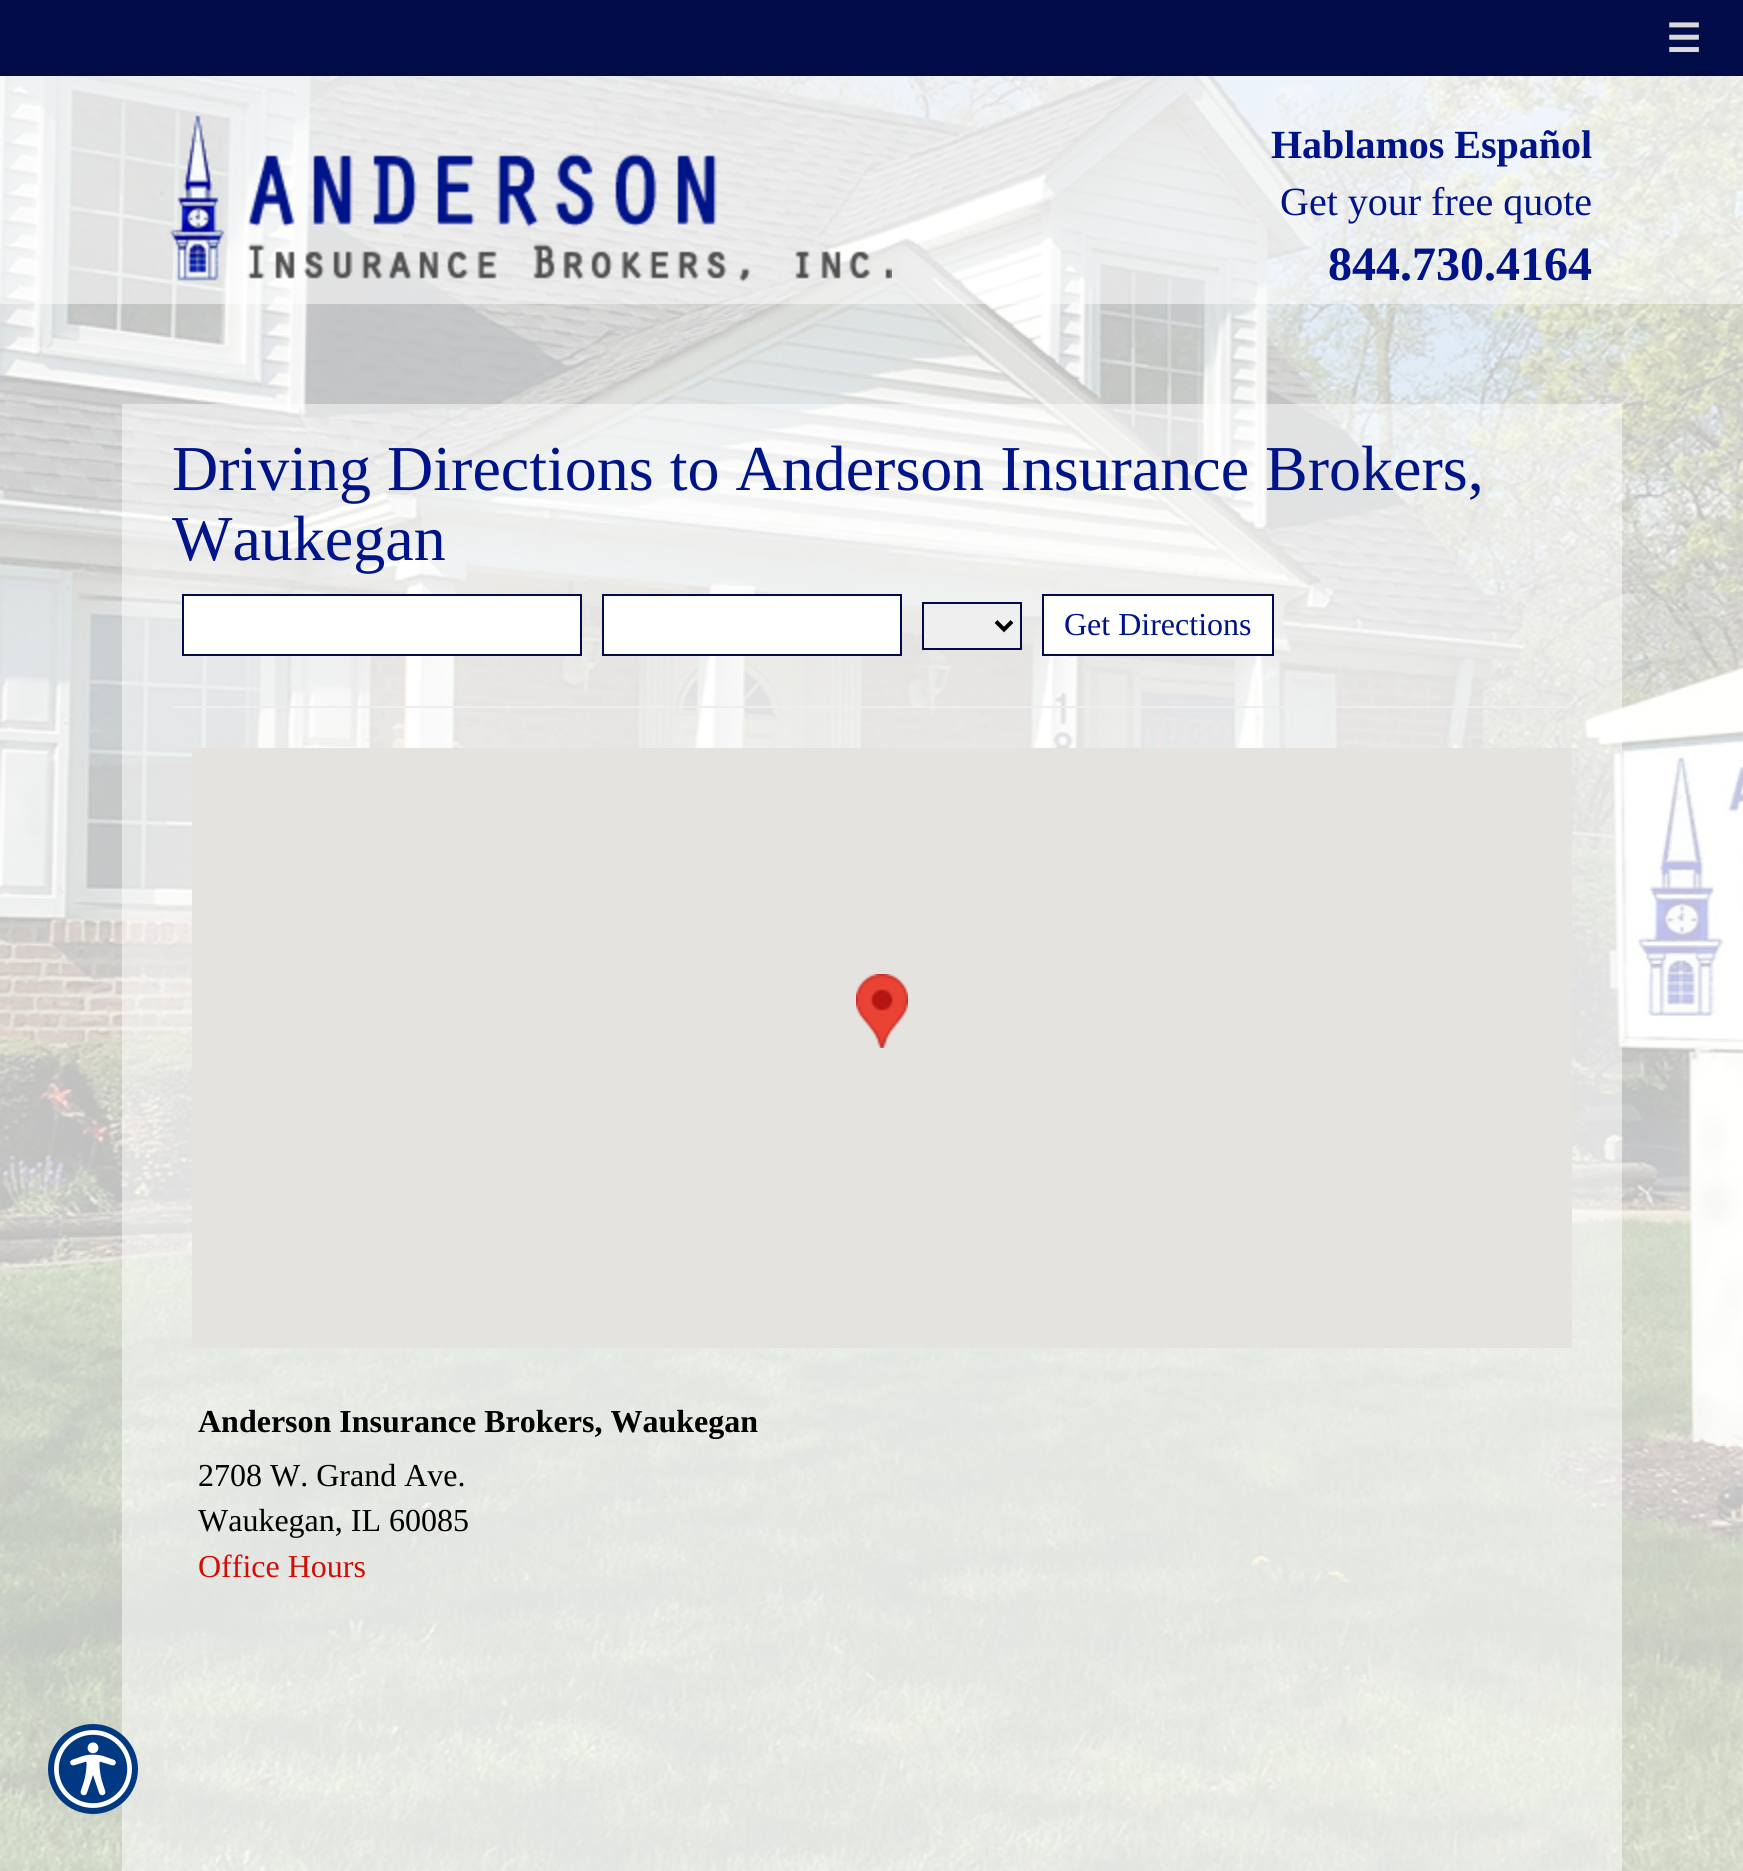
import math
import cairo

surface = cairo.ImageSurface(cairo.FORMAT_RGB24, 1743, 1871)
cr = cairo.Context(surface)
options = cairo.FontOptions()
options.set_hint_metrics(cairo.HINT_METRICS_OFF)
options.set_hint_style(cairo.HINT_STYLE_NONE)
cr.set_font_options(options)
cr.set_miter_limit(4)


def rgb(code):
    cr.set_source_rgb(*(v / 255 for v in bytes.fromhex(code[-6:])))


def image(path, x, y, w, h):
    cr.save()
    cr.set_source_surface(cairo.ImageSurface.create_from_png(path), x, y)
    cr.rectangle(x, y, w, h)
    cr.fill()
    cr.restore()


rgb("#ffffff")
cr.paint()
image("img/1.png", 0, 76, 1743, 1795)
cr.set_source_rgba(1, 1, 1, 0.5)
cr.rectangle(0, 76, 1743, 228)
cr.fill()
rgb("#020c48")
cr.rectangle(0, 0, 1743, 76)
cr.fill()
image("img/2.png", 160, 114, 732, 169)
cr.set_source_rgba(1, 1, 1, 0.5)
cr.rectangle(122, 404, 1500, 1467)
cr.fill()
rgb("#ffffff")
cr.rectangle(183, 595, 398, 60)
cr.fill_preserve()
rgb("#020c48")
cr.stroke()
rgb("#ffffff")
cr.rectangle(603, 595, 298, 60)
cr.fill_preserve()
rgb("#020c48")
cr.stroke()
rgb("#efefef")
cr.rectangle(923, 603, 98, 46)
cr.fill_preserve()
rgb("#020c48")
cr.stroke()
cr.new_path()
cr.move_to(996, 621.5)
cr.line_to(1004, 629.5)
cr.line_to(1012, 621.5)
rgb("#000000")
cr.set_line_width(4)
cr.stroke()
rgb("#ffffff")
cr.rectangle(1043, 595, 230, 60)
cr.fill_preserve()
rgb("#020c48")
cr.set_line_width(2)
cr.stroke()
rgb("#eeeeee")
cr.rectangle(172, 706, 1400, 2)
cr.fill()
rgb("#e5e3df")
cr.rectangle(192, 748, 1380, 600)
cr.fill()
image("img/3.png", 856, 974, 52, 74)
image("img/4.png", 48, 1724, 90, 90)
cr.select_font_face("DejaVu Sans", cairo.FONT_SLANT_NORMAL, cairo.FONT_WEIGHT_BOLD)
cr.set_font_size(39)
rgb("#dadada")
cr.move_to(1666, 52)
cr.show_text("☰")
cr.select_font_face("Liberation Serif", cairo.FONT_SLANT_NORMAL, cairo.FONT_WEIGHT_BOLD)
cr.set_font_size(40)
rgb("#001489")
cr.move_to(1271, 158)
cr.show_text("Hablamos Español")
cr.select_font_face("Liberation Serif")
cr.move_to(1280, 215)
cr.show_text("Get your free quote")
cr.select_font_face("Liberation Serif", cairo.FONT_SLANT_NORMAL, cairo.FONT_WEIGHT_BOLD)
cr.set_font_size(48)
cr.move_to(1328, 280)
cr.show_text("844.730.4164")
cr.select_font_face("Liberation Serif")
cr.set_font_size(64)
cr.move_to(172, 490)
cr.show_text("Driving Directions to Anderson Insurance Brokers,")
cr.move_to(172, 560)
cr.show_text("Waukegan")
cr.set_font_size(32)
cr.move_to(1064, 635)
cr.show_text("Get Directions")
cr.select_font_face("Liberation Serif", cairo.FONT_SLANT_NORMAL, cairo.FONT_WEIGHT_BOLD)
rgb("#000000")
cr.move_to(198, 1432)
cr.show_text("Anderson Insurance Brokers, Waukegan")
cr.select_font_face("Liberation Serif")
cr.move_to(198, 1486)
cr.show_text("2708 W. Grand Ave.")
cr.move_to(198, 1531)
cr.show_text("Waukegan, IL 60085")
rgb("#d20d06")
cr.move_to(198, 1577)
cr.show_text("Office Hours")
surface.write_to_png("page.png")
